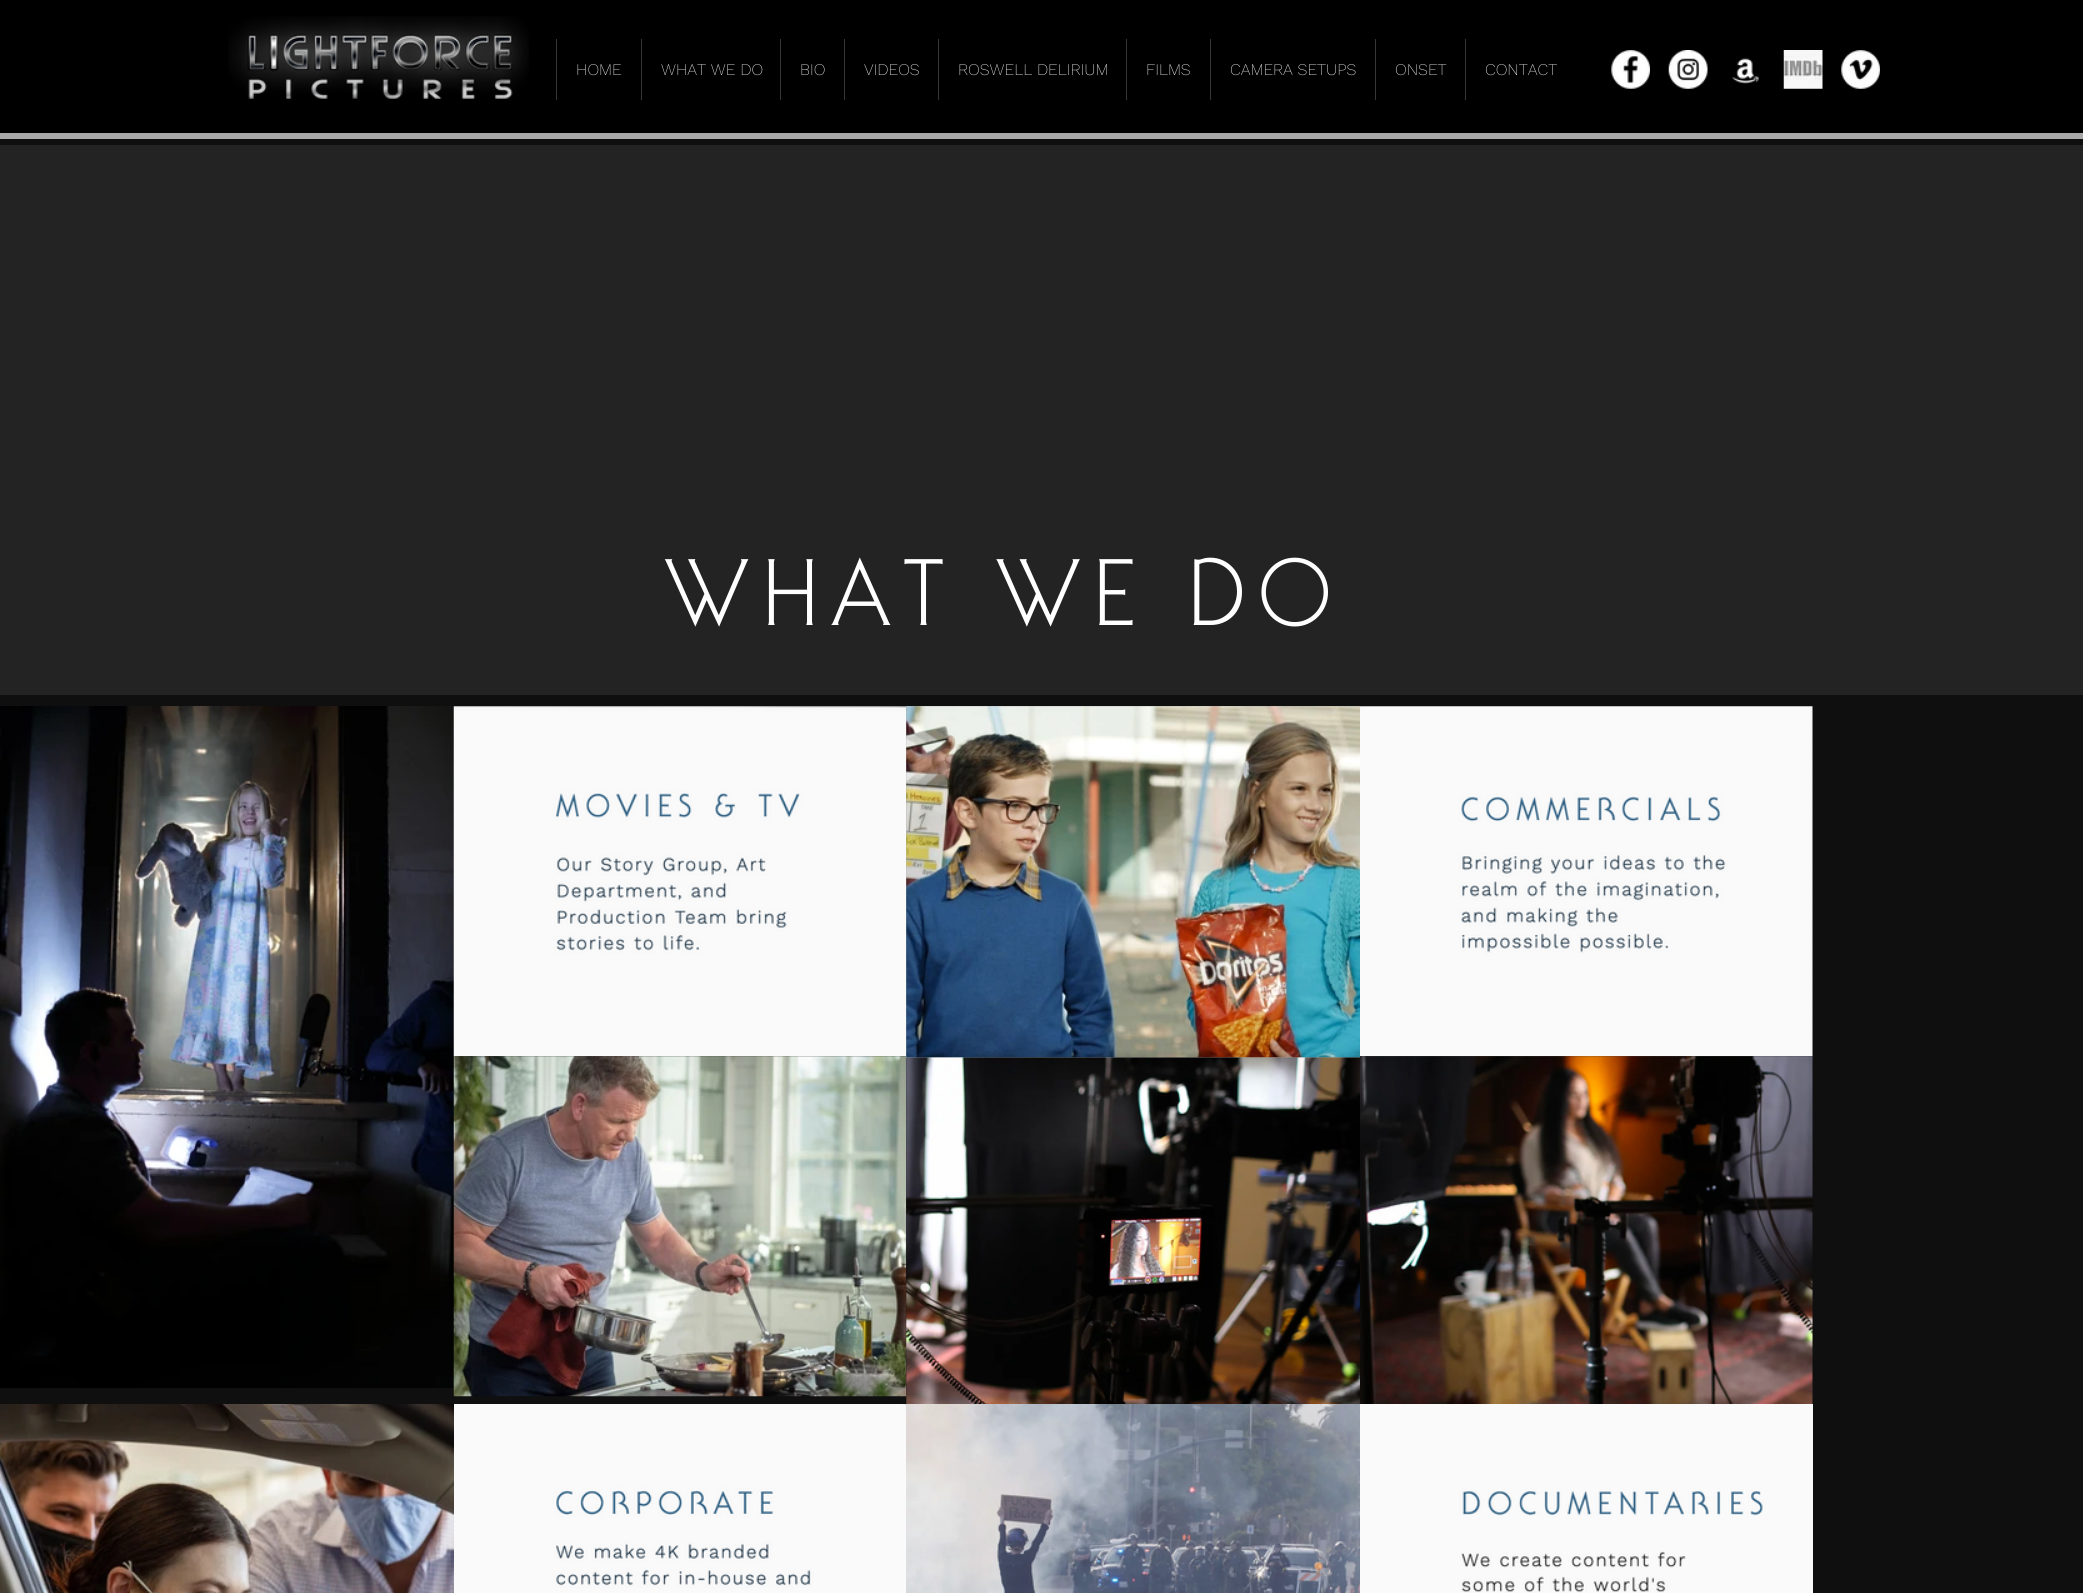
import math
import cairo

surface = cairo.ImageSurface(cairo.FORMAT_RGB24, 2083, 1593)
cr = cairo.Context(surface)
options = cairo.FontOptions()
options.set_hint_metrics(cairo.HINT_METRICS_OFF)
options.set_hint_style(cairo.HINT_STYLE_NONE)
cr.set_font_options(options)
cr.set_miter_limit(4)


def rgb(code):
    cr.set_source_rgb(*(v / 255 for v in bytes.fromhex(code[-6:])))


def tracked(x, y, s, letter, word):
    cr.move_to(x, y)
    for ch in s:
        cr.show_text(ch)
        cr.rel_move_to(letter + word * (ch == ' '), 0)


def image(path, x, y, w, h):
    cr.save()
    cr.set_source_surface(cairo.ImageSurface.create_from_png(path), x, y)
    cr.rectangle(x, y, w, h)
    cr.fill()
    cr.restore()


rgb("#0f0f0f")
cr.paint()
rgb("#000000")
cr.rectangle(0, 0, 2083, 133)
cr.fill()
rgb("#a8a8a8")
cr.rectangle(0, 133, 2083, 6)
cr.fill()
image("img/1.png", 228, 16, 301, 83)
for x, y, w, h, color in [
    (556, 39, 1, 61, "#363636"),
    (641, 39, 1, 61, "#363636"),
    (780, 39, 1, 61, "#363636"),
    (844, 39, 1, 61, "#363636"),
    (938, 39, 1, 61, "#363636"),
    (1126, 39, 1, 61, "#363636"),
    (1210, 39, 1, 61, "#363636"),
    (1375, 39, 1, 61, "#363636"),
    (1465, 39, 1, 61, "#363636"),
]:
    rgb(color)
    cr.rectangle(x, y, w, h)
    cr.fill()
image("img/2.png", 1611, 50, 39, 39)
image("img/3.png", 1668, 50, 40, 39)
image("img/4.png", 1732, 58, 27, 26)
image("img/5.png", 1783, 50, 40, 39)
image("img/6.png", 1841, 50, 39, 39)
rgb("#242323")
cr.rectangle(0, 145, 2083, 550)
cr.fill()
image("img/7.png", 0, 706, 454, 682)
image("img/8.png", 453, 706, 453, 351)
rgb("#a8a8a8")
cr.rectangle(906, 706, 454, 352)
cr.fill()
image("img/9.png", 906, 706, 454, 352)
image("img/10.png", 1360, 706, 453, 351)
image("img/11.png", 453, 1056, 454, 341)
image("img/12.png", 906, 1057, 454, 347)
image("img/13.png", 1360, 1056, 453, 348)
image("img/14.png", 0, 1404, 454, 189)
image("img/15.png", 454, 1404, 452, 189)
image("img/16.png", 906, 1404, 454, 189)
image("img/17.png", 1360, 1404, 453, 189)
cr.select_font_face("Work Sans ExtraLight")
cr.set_font_size(16.25)
rgb("#ffffff")
for x, y, s in [
    (576, 75, "HOME"),
    (661, 75, "WHAT WE DO"),
    (800, 75, "BIO"),
    (864, 75, "VIDEOS"),
    (958, 75, "ROSWELL DELIRIUM"),
    (1146, 75, "FILMS"),
    (1230, 75, "CAMERA SETUPS"),
    (1395, 75, "ONSET"),
    (1485, 75, "CONTACT"),
]:
    cr.move_to(x, y)
    cr.show_text(s)
cr.select_font_face("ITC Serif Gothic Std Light")
cr.set_font_size(92.5)
tracked(666, 625, "WHAT WE DO", 13.9, 0)
surface.write_to_png("page.png")
